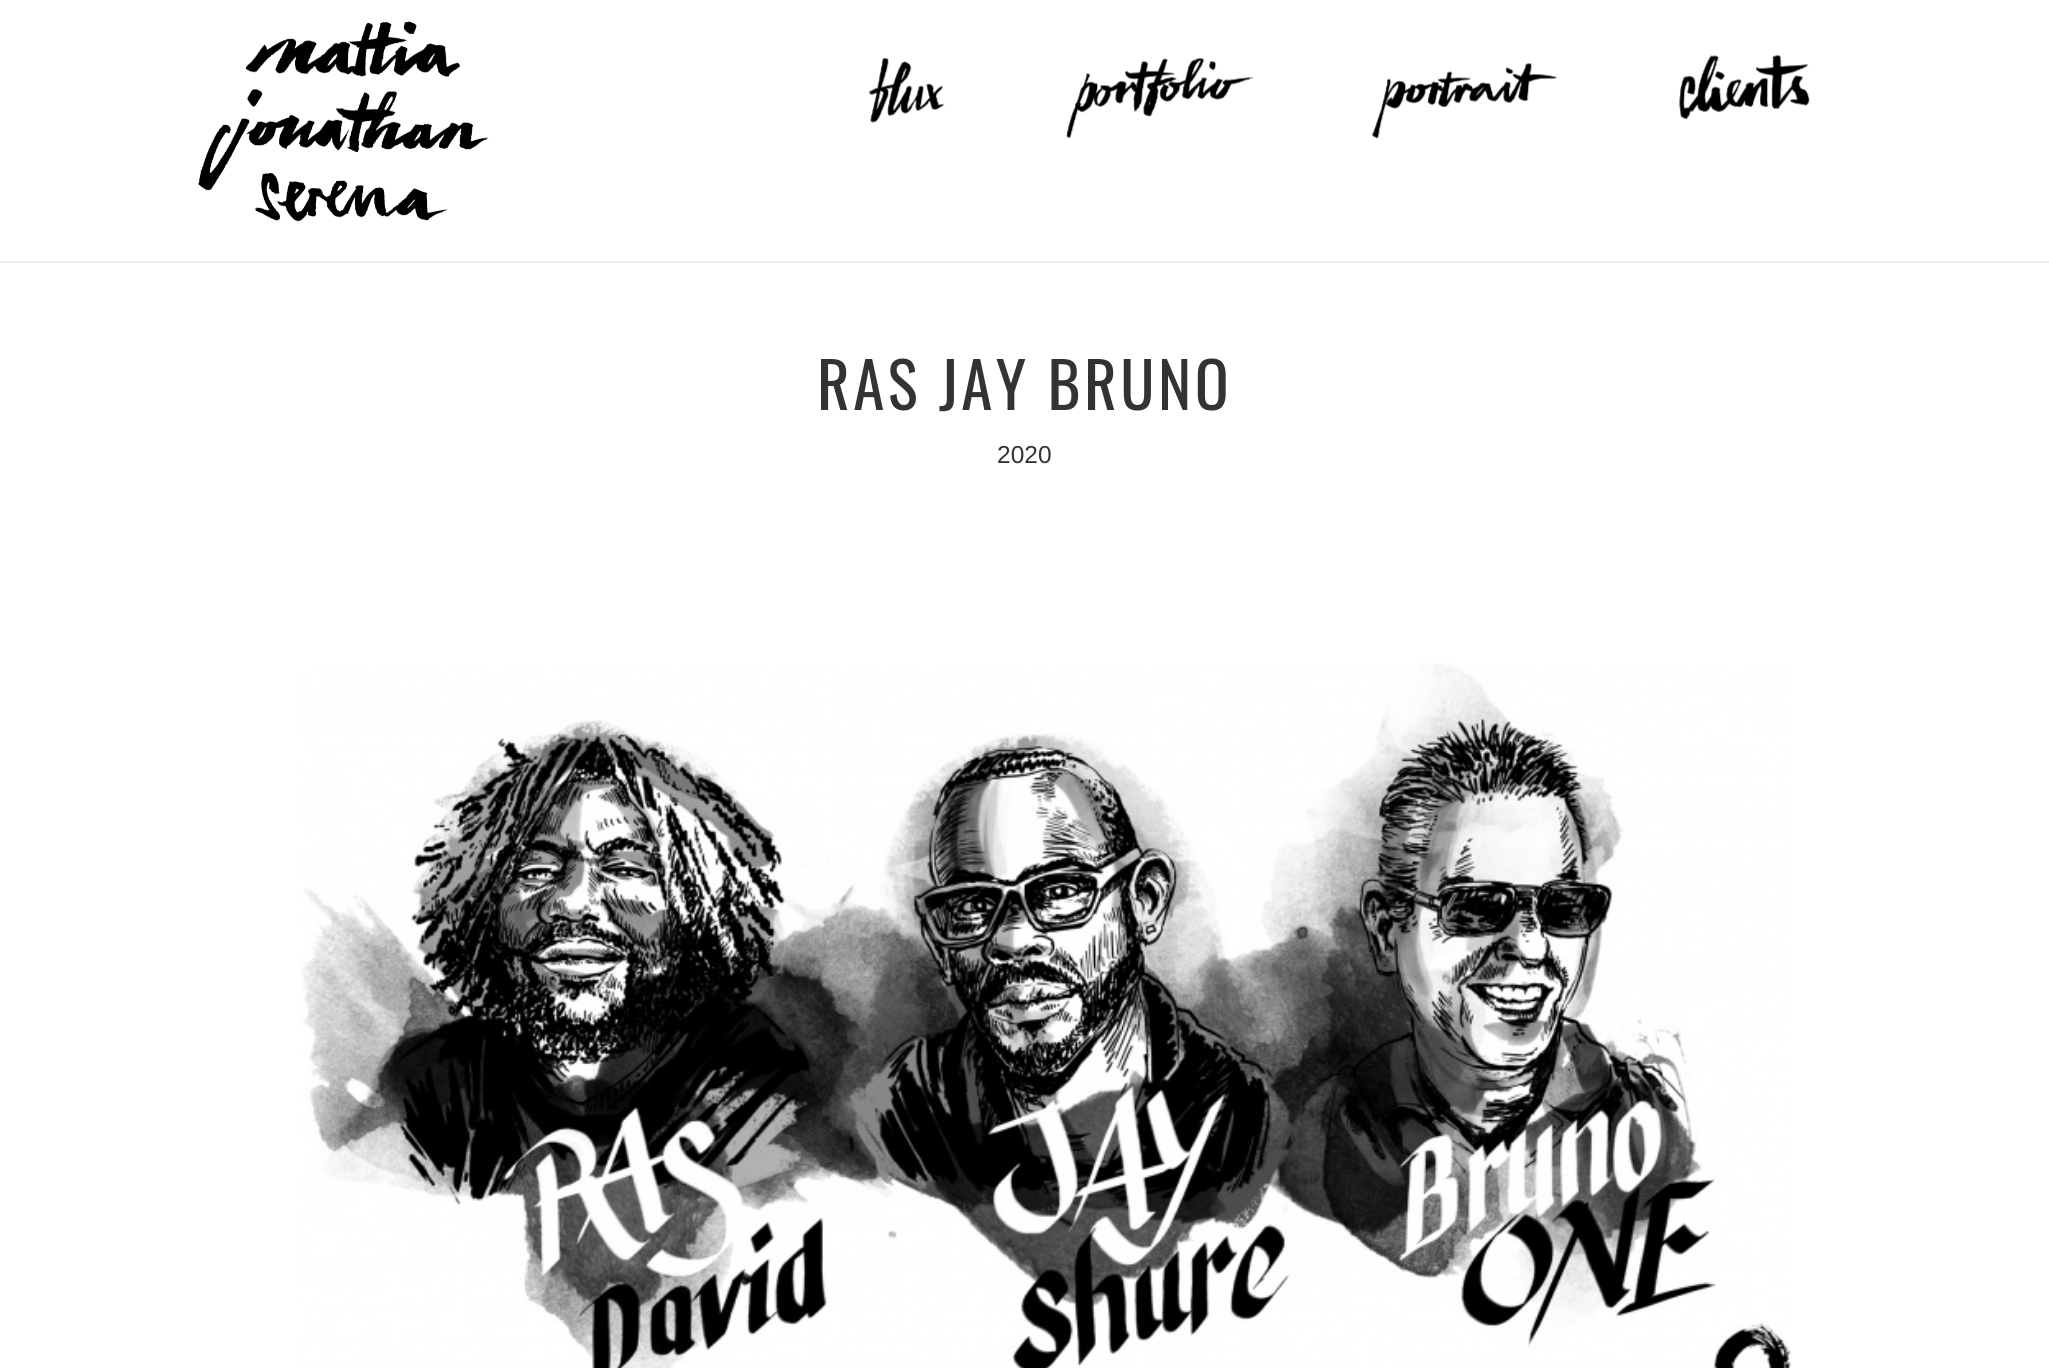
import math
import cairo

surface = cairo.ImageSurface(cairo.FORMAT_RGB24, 2049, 1368)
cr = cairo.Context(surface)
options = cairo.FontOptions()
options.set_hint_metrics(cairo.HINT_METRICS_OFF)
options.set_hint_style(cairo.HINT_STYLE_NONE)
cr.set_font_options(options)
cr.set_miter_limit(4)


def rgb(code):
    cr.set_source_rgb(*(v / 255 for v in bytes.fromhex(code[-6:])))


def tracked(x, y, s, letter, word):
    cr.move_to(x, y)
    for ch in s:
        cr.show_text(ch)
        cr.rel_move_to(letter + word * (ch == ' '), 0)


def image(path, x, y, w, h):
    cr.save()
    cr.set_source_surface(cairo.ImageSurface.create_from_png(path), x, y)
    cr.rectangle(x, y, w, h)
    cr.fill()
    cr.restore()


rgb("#ffffff")
cr.paint()
rgb("#eeeeee")
cr.rectangle(0, 261, 2049, 2)
cr.fill()
image("img/1.png", 198, 21, 291, 201)
image("img/2.png", 869, 57, 76, 66)
image("img/3.png", 1066, 57, 188, 82)
image("img/4.png", 1372, 63, 186, 76)
image("img/5.png", 1679, 55, 131, 65)
image("img/6.png", 300, 663, 1491, 705)
cr.select_font_face("Oswald")
cr.set_font_size(63)
rgb("#333333")
tracked(817, 410, "RAS JAY BRUNO", 3.5, 0)
cr.select_font_face("Liberation Sans")
cr.set_font_size(24.5)
cr.move_to(997, 463)
cr.show_text("2020")
surface.write_to_png("page.png")
